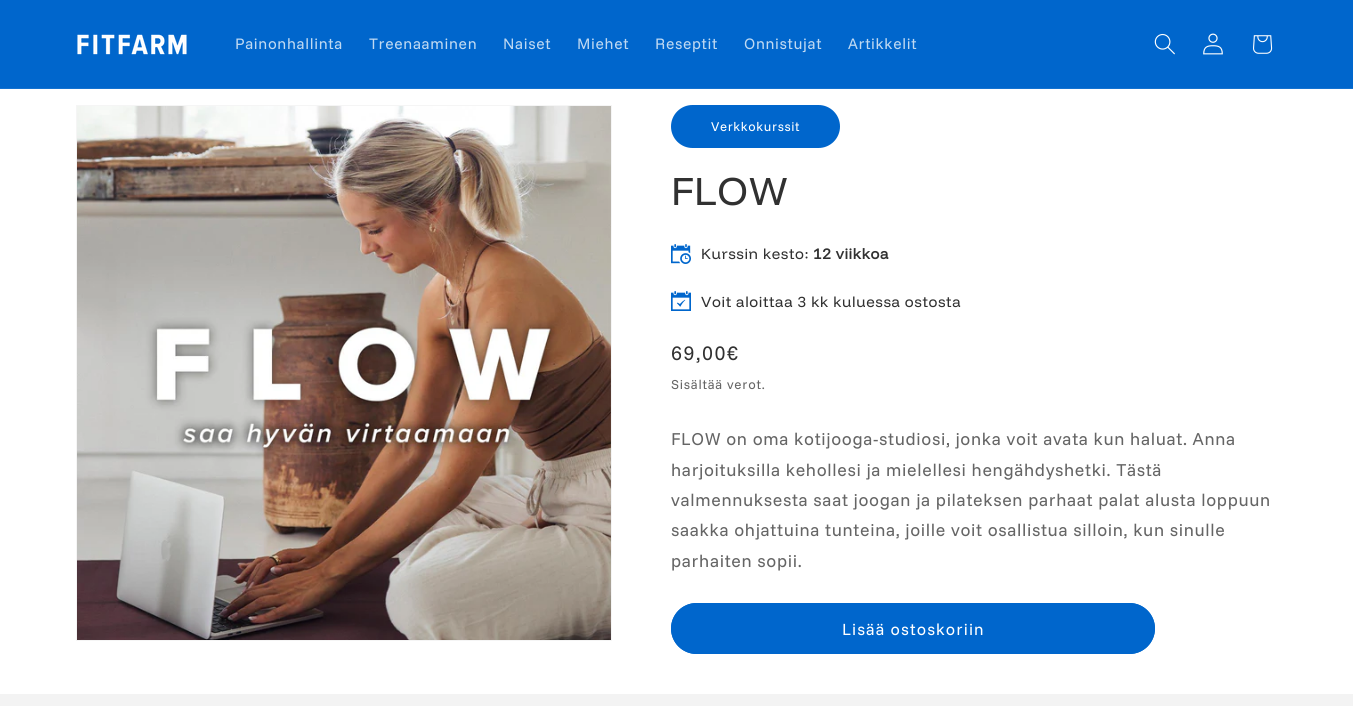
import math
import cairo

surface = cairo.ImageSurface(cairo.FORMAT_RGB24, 1353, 706)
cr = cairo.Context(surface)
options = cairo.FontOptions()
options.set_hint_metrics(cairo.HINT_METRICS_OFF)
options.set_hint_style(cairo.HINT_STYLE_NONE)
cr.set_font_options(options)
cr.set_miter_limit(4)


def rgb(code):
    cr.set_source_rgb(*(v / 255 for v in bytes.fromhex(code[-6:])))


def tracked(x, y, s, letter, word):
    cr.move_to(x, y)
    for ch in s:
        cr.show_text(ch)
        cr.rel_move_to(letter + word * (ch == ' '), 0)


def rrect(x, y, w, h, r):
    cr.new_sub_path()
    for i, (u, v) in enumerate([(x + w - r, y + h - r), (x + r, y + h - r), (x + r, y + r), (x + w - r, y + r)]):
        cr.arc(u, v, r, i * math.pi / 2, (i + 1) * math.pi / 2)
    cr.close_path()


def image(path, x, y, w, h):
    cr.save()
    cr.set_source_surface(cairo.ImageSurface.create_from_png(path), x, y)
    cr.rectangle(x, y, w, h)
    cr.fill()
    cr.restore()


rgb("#ffffff")
cr.paint()
rgb("#0066cc")
cr.rectangle(0, 0, 1353, 88)
cr.fill()
rgb("#1472d0")
cr.rectangle(0, 88, 1353, 1)
cr.fill()
image("img/1.png", 77, 34, 110, 21)
image("img/2.png", 1154, 33, 21, 22)
image("img/3.png", 1203, 33, 20, 22)
image("img/4.png", 1253, 35, 20, 19)
cr.rectangle(76.5, 105.5, 535, 535)
rgb("#f5f5f5")
cr.set_line_width(1)
cr.stroke()
image("img/5.png", 77, 106, 534, 534)
rgb("#0066cc")
rrect(671, 105, 169, 43, 21.5)
cr.fill()
image("img/6.png", 671, 244, 20, 20)
image("img/7.png", 671, 291, 20, 20)
rrect(671, 603, 484, 51, 25.5)
cr.fill()
rrect(671.5, 603.5, 483, 50, 25)
cr.stroke()
rgb("#f3f3f3")
cr.rectangle(0, 694, 1353, 12)
cr.fill()
cr.select_font_face("Funnel Sans")
cr.set_font_size(15.5)
rgb("#bfd9f2")
for x, y, s in [
    (235, 49, "Painonhallinta"),
    (369, 49, "Treenaaminen"),
    (503, 49, "Naiset"),
    (577, 49, "Miehet"),
    (655, 49, "Reseptit"),
    (744, 49, "Onnistujat"),
    (848, 49, "Artikkelit"),
]:
    tracked(x, y, s, 0.65, 0)
cr.set_font_size(13)
rgb("#ffffff")
tracked(711, 131, "Verkkokurssit", 0.65, 0)
cr.select_font_face("Funnel Display")
cr.set_font_size(40)
rgb("#313131")
tracked(671, 205, "FLOW", 0.6, 0)
cr.set_font_size(15)
tracked(701, 259, "Kurssin kesto:", 0.6, 0)
cr.select_font_face("Funnel Display", cairo.FONT_SLANT_NORMAL, cairo.FONT_WEIGHT_BOLD)
tracked(813, 259, "12 viikkoa", 0.6, 0)
cr.select_font_face("Funnel Display")
tracked(701, 307, "Voit aloittaa 3 kk kuluessa ostosta", 0.6, 0)
cr.select_font_face("Funnel Sans")
cr.set_font_size(20)
tracked(671, 360, "69,00€", 1.5, 0)
cr.set_font_size(13.25)
rgb("#656565")
tracked(671, 389, "Sisältää verot.", 0.75, 0)
cr.set_font_size(17.6)
for x, y, s in [
    (671, 445, "FLOW on oma kotijooga-studiosi, jonka voit avata kun haluat. Anna"),
    (671, 476, "harjoituksilla kehollesi ja mielellesi hengähdyshetki. Tästä"),
    (671, 506, "valmennuksesta saat joogan ja pilateksen parhaat palat alusta loppuun"),
    (671, 536, "saakka ohjattuina tunteina, joille voit osallistua silloin, kun sinulle"),
    (671, 567, "parhaiten sopii."),
]:
    tracked(x, y, s, 0.65, 0)
cr.set_font_size(16.5)
rgb("#ffffff")
tracked(842, 635, "Lisää ostoskoriin", 1.1, 0)
surface.write_to_png("page.png")
